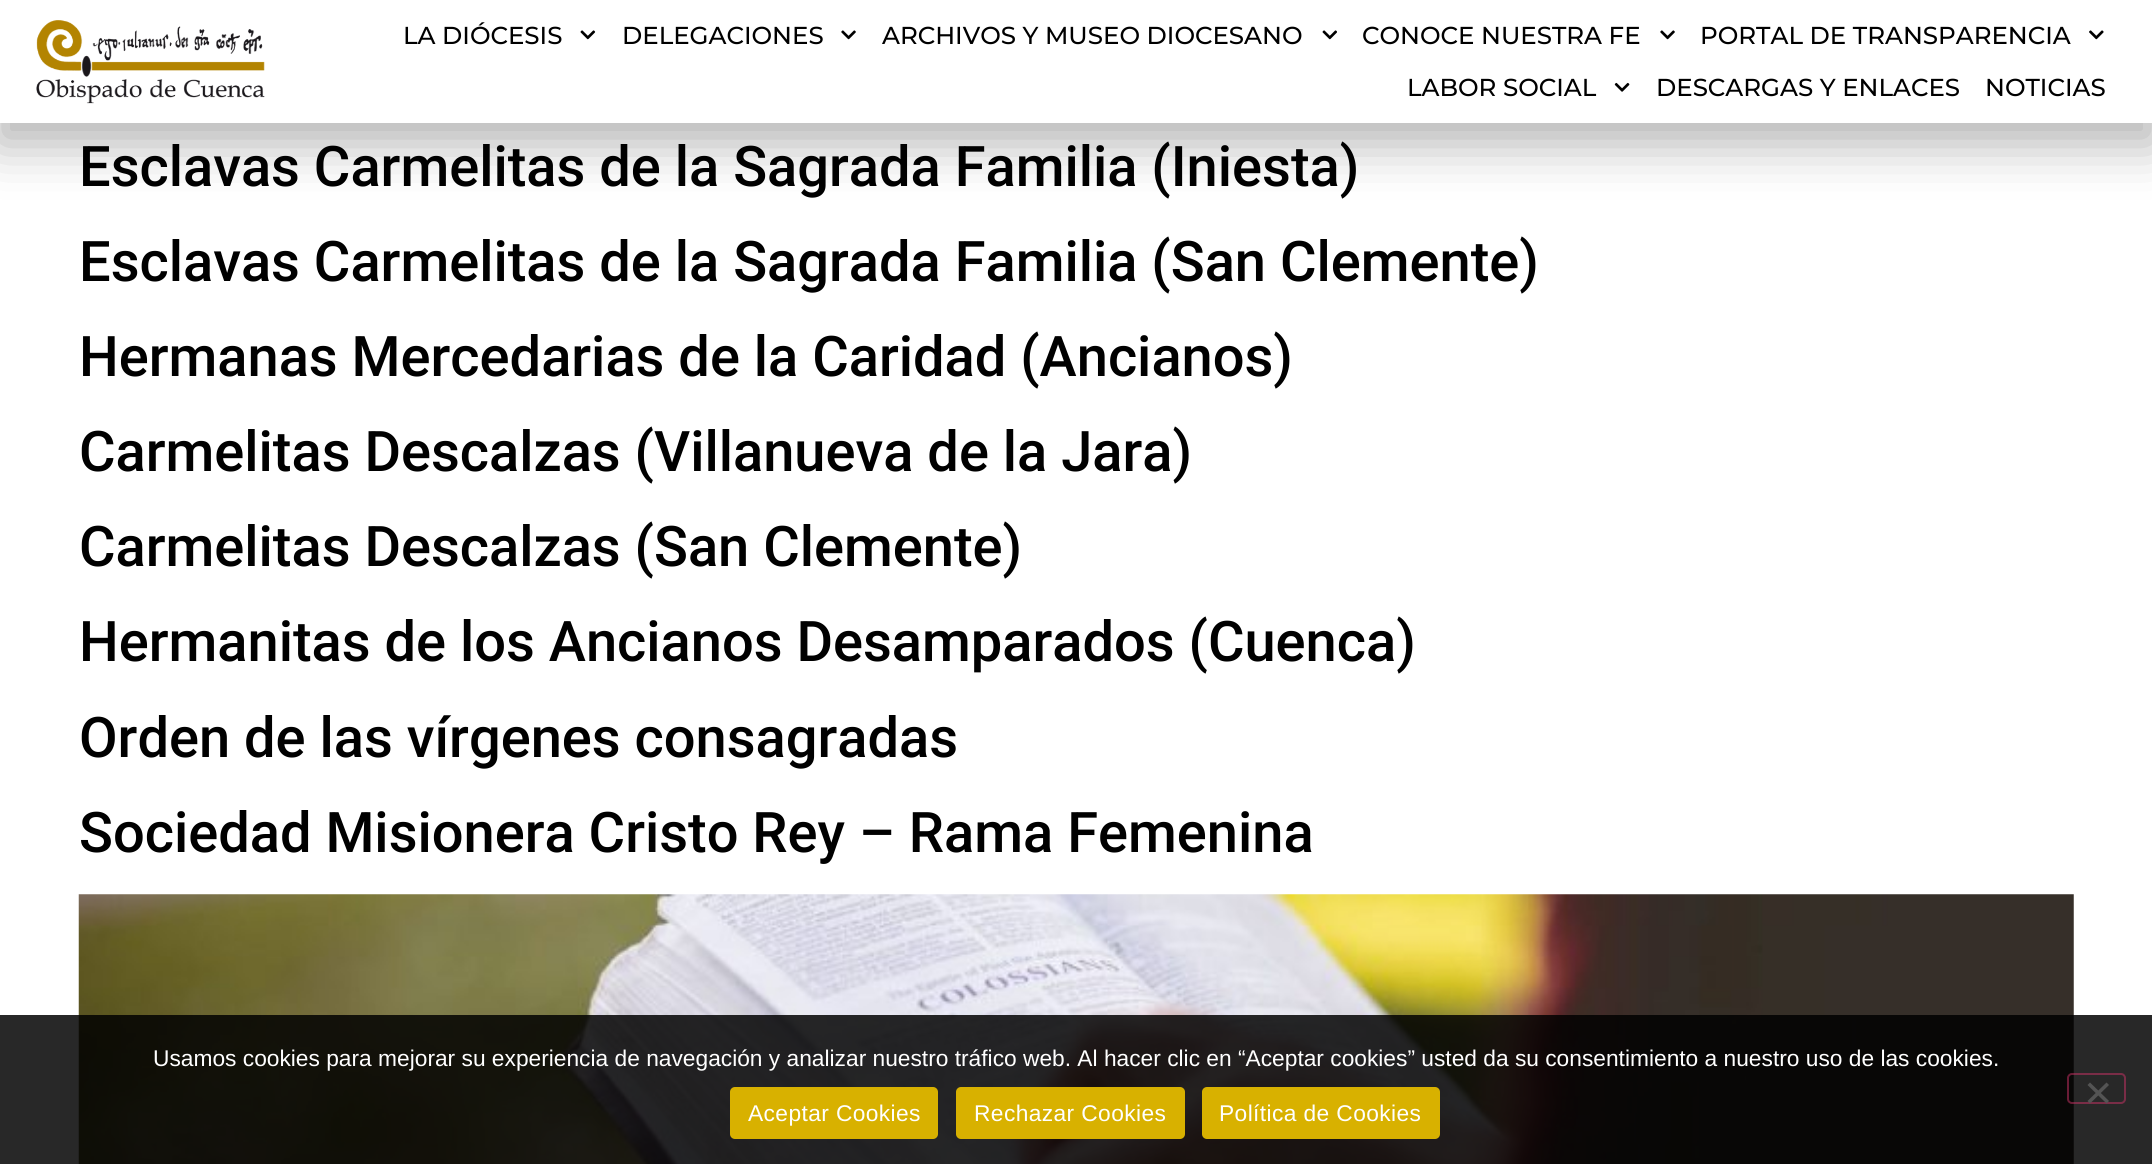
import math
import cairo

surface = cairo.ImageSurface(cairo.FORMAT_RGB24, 2152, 1164)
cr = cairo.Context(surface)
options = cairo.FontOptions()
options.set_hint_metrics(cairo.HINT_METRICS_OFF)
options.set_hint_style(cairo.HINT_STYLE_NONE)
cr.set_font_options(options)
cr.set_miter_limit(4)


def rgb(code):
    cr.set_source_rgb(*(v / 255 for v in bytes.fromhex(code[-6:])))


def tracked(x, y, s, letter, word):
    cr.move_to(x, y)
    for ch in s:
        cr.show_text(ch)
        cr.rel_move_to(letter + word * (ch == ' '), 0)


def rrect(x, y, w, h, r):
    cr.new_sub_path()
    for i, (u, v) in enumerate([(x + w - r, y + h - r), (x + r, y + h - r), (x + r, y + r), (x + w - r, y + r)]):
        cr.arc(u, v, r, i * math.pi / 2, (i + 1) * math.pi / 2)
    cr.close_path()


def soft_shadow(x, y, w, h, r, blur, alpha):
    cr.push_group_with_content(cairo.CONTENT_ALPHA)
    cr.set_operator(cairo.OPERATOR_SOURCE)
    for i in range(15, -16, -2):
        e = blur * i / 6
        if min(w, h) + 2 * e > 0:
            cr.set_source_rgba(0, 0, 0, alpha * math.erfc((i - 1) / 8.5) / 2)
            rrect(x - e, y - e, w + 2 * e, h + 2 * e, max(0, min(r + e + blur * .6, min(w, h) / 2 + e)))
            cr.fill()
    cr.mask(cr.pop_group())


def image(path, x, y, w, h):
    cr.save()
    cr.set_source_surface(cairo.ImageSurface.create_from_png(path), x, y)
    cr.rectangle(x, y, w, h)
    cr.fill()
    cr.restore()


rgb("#ffffff")
cr.paint()
rgb("#000000")
soft_shadow(-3, 14, 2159, 130, 0, 26, 0.3)
rgb("#ffffff")
cr.rectangle(0, 0, 2152, 123)
cr.fill()
image("img/1.png", 36, 20, 229, 84)
image("img/2.png", 580, 30, 16, 10)
image("img/3.png", 841, 30, 15, 10)
image("img/4.png", 1322, 30, 15, 10)
image("img/3.png", 1660, 30, 15, 10)
image("img/5.png", 2089, 30, 15, 10)
image("img/6.png", 1614, 82, 16, 10)
image("img/7.png", 78, 894, 1996, 270)
cr.set_source_rgba(0, 0, 0, 0.84)
cr.rectangle(0, 1015, 2152, 149)
cr.fill()
rrect(2068, 1074, 57, 29, 4)
cr.set_source_rgba(0.8, 0.2, 0.4, 0.5)
cr.stroke()
rgb("#545454")
cr.new_path()
cr.move_to(2106.5, 1082.5)
cr.line_to(2109, 1085)
cr.line_to(2090, 1103.5)
cr.line_to(2087.5, 1101)
cr.close_path()
cr.fill()
cr.new_path()
cr.move_to(2087.5, 1085)
cr.line_to(2090, 1082.5)
cr.line_to(2109, 1101)
cr.line_to(2106.5, 1103.5)
cr.close_path()
cr.fill()
rgb("#d8b100")
rrect(730, 1087, 208, 52, 5)
cr.fill()
rrect(956, 1087, 229, 52, 5)
cr.fill()
rrect(1202, 1087, 238, 52, 5)
cr.fill()
cr.select_font_face("Montserrat Medium")
cr.set_font_size(24.5)
rgb("#000000")
for x, y, s in [
    (403, 44, "LA DIÓCESIS"),
    (622, 44, "DELEGACIONES"),
    (882, 44, "ARCHIVOS Y MUSEO DIOCESANO"),
    (1362, 44, "CONOCE NUESTRA FE"),
    (1700, 44, "PORTAL DE TRANSPARENCIA"),
    (1407, 96, "LABOR SOCIAL"),
    (1656, 96, "DESCARGAS Y ENLACES"),
    (1985, 96, "NOTICIAS"),
]:
    cr.move_to(x, y)
    cr.show_text(s)
cr.select_font_face("Roboto Medium")
cr.set_font_size(56)
for x, y, s in [
    (79, 186, "Esclavas Carmelitas de la Sagrada Familia (Iniesta)"),
    (79, 281, "Esclavas Carmelitas de la Sagrada Familia (San Clemente)"),
    (79, 376, "Hermanas Mercedarias de la Caridad (Ancianos)"),
    (79, 471, "Carmelitas Descalzas (Villanueva de la Jara)"),
    (79, 566, "Carmelitas Descalzas (San Clemente)"),
    (79, 661, "Hermanitas de los Ancianos Desamparados (Cuenca)"),
    (79, 757, "Orden de las vírgenes consagradas"),
    (79, 852, "Sociedad Misionera Cristo Rey – Rama Femenina"),
]:
    cr.move_to(x, y)
    cr.show_text(s)
cr.select_font_face("Liberation Sans")
cr.set_font_size(22.75)
rgb("#ffffff")
cr.move_to(153, 1066)
cr.show_text("Usamos cookies para mejorar su experiencia de navegación y analizar nuestro tráfico web. Al hacer clic en “Aceptar cookies” usted da su consentimiento a nuestro uso de las cookies.")
for x, y, s in [
    (748, 1121, "Aceptar Cookies"),
    (974, 1121, "Rechazar Cookies"),
    (1219, 1121, "Política de Cookies"),
]:
    tracked(x, y, s, 0.4, 0)
surface.write_to_png("page.png")
